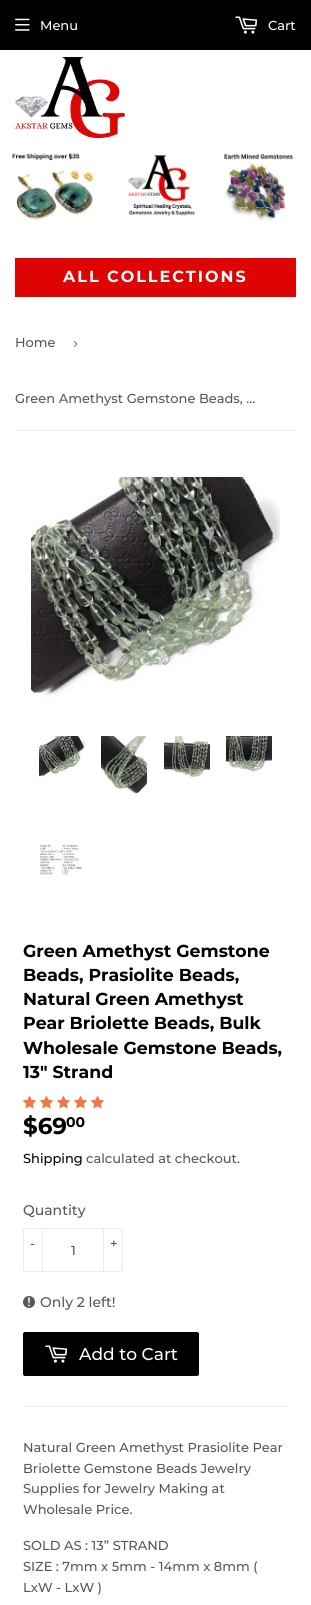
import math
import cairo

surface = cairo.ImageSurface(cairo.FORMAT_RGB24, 311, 1605)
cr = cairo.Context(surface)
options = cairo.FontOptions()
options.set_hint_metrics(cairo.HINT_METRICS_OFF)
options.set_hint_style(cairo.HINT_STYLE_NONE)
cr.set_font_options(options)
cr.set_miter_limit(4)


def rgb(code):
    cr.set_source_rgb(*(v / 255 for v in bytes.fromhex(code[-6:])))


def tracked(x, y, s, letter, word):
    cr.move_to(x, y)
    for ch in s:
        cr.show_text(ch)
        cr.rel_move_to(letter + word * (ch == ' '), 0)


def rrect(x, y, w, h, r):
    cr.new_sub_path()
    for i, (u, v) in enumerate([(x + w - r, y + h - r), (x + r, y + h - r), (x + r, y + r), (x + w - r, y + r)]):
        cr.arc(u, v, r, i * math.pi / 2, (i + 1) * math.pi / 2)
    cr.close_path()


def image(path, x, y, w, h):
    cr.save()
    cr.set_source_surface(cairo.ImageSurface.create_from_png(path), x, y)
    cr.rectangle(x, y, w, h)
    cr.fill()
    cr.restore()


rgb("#ffffff")
cr.paint()
rgb("#000000")
cr.rectangle(0, 0, 311, 50)
cr.fill()
image("img/1.png", 15, 18, 15, 13)
image("img/2.png", 235, 16, 23, 18)
image("img/3.png", 15, 57, 110, 81)
image("img/4.png", 12, 152, 282, 69)
rgb("#de0404")
cr.rectangle(15, 258, 281, 39)
cr.fill()
rgb("#ececec")
cr.rectangle(15, 430, 281, 1)
cr.fill()
image("img/5.png", 31, 477, 249, 221)
image("img/6.png", 39, 736, 46, 41)
image("img/7.png", 101, 736, 46, 58)
image("img/8.png", 164, 736, 46, 42)
image("img/9.png", 226, 736, 46, 36)
image("img/10.png", 40, 844, 43, 31)
image("img/11.png", 23, 1096, 13, 13)
image("img/11.png", 40, 1096, 13, 13)
image("img/11.png", 57, 1096, 13, 13)
image("img/11.png", 74, 1096, 13, 13)
image("img/11.png", 91, 1096, 13, 13)
rrect(23.5, 1228.5, 99, 43, 1.5)
cr.set_line_width(1)
cr.stroke()
cr.rectangle(42, 1228, 1, 44)
cr.fill()
cr.rectangle(103, 1228, 1, 44)
cr.fill()
image("img/12.png", 23, 1296, 12, 12)
rgb("#000000")
rrect(23, 1332, 176, 44, 2)
cr.fill()
image("img/2.png", 45, 1345, 23, 18)
rgb("#ececec")
cr.rectangle(23, 1406, 265, 1)
cr.fill()
cr.select_font_face("Montserrat Medium")
cr.set_font_size(13)
rgb("#ffffff")
cr.move_to(40, 30)
cr.show_text("Menu")
cr.move_to(268, 30)
cr.show_text("Cart")
cr.select_font_face("Montserrat", cairo.FONT_SLANT_NORMAL, cairo.FONT_WEIGHT_BOLD)
cr.set_font_size(16)
tracked(63, 282, "ALL COLLECTIONS", 2, 0)
cr.select_font_face("Montserrat Medium")
cr.set_font_size(13)
rgb("#585858")
cr.move_to(15, 347)
cr.show_text("Home")
cr.select_font_face("Liberation Sans")
cr.set_font_size(15)
rgb("#767676")
cr.move_to(73, 348)
cr.show_text("›")
cr.select_font_face("Montserrat Medium")
cr.set_font_size(13)
rgb("#585858")
cr.move_to(15, 403)
cr.show_text("Green Amethyst Gemstone Beads, …")
cr.select_font_face("Montserrat", cairo.FONT_SLANT_NORMAL, cairo.FONT_WEIGHT_BOLD)
cr.set_font_size(17.3)
rgb("#000000")
for x, y, s in [
    (23, 957, "Green Amethyst Gemstone"),
    (23, 981, "Beads, Prasiolite Beads,"),
    (23, 1005, "Natural Green Amethyst"),
    (23, 1029, "Pear Briolette Beads, Bulk"),
    (23, 1054, "Wholesale Gemstone Beads,"),
    (23, 1078, "13\" Strand"),
]:
    cr.move_to(x, y)
    cr.show_text(s)
cr.set_font_size(23)
cr.move_to(23, 1134)
cr.show_text("$69")
cr.set_font_size(14)
cr.move_to(66, 1127)
cr.show_text("00")
cr.select_font_face("Montserrat Medium")
cr.set_font_size(13)
cr.move_to(23, 1163)
cr.show_text("Shipping")
rgb("#585858")
cr.move_to(86, 1163)
cr.show_text("calculated at checkout.")
cr.set_font_size(14)
cr.move_to(23, 1215)
cr.show_text("Quantity")
cr.set_font_size(13)
for x, y, s in [
    (30, 1248, "-"),
    (110, 1248, "+"),
    (71, 1255, "1"),
]:
    cr.move_to(x, y)
    cr.show_text(s)
cr.set_font_size(14)
cr.move_to(40, 1307)
cr.show_text("Only 2 left!")
cr.set_font_size(17)
rgb("#ffffff")
cr.move_to(79, 1360)
cr.show_text("Add to Cart")
cr.set_font_size(13)
rgb("#585858")
for x, y, s in [
    (23, 1452, "Natural Green Amethyst Prasiolite Pear"),
    (23, 1473, "Briolette Gemstone Beads Jewelry"),
    (23, 1493, "Supplies for Jewelry Making at"),
    (23, 1514, "Wholesale Price."),
    (23, 1550, "SOLD AS : 13” STRAND"),
    (23, 1571, "SIZE : 7mm x 5mm - 14mm x 8mm ("),
    (23, 1592, "LxW - LxW )"),
]:
    cr.move_to(x, y)
    cr.show_text(s)
surface.write_to_png("page.png")
